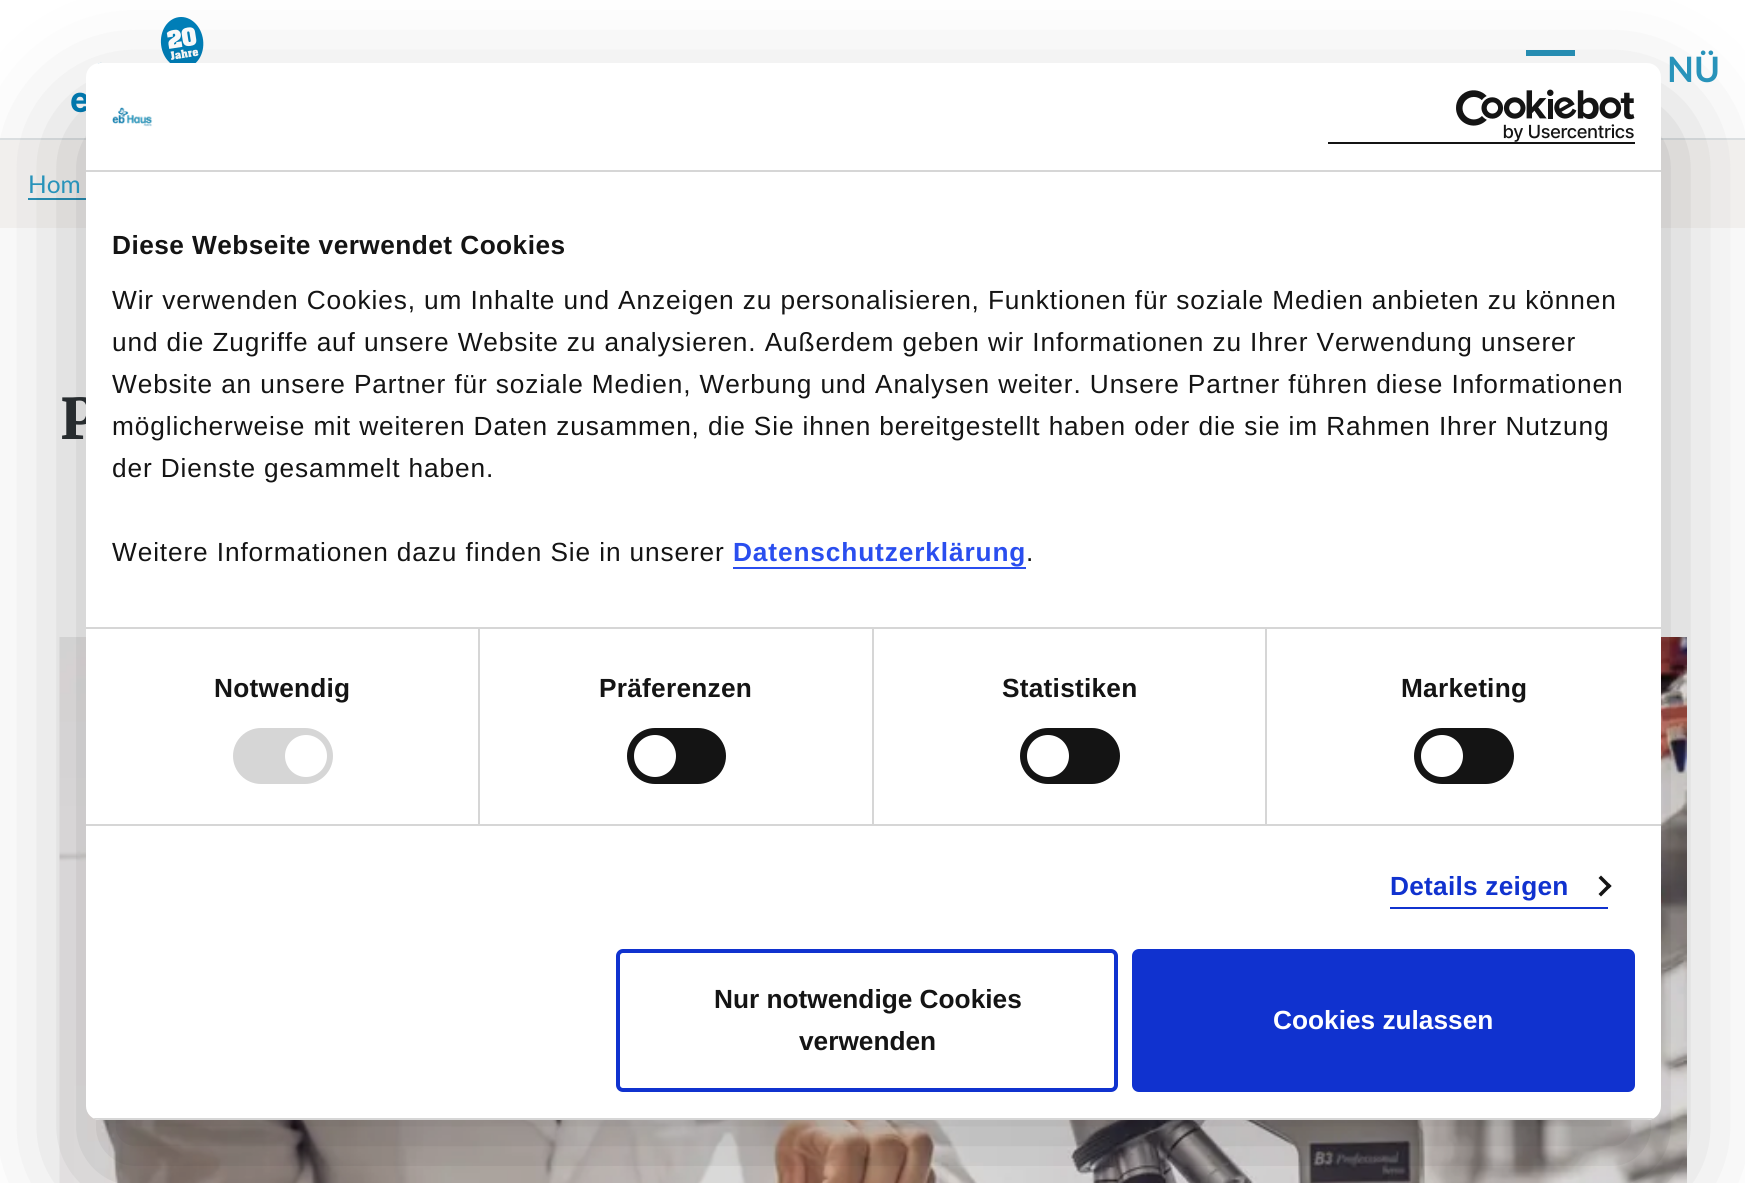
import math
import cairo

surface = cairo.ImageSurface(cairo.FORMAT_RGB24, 1745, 1183)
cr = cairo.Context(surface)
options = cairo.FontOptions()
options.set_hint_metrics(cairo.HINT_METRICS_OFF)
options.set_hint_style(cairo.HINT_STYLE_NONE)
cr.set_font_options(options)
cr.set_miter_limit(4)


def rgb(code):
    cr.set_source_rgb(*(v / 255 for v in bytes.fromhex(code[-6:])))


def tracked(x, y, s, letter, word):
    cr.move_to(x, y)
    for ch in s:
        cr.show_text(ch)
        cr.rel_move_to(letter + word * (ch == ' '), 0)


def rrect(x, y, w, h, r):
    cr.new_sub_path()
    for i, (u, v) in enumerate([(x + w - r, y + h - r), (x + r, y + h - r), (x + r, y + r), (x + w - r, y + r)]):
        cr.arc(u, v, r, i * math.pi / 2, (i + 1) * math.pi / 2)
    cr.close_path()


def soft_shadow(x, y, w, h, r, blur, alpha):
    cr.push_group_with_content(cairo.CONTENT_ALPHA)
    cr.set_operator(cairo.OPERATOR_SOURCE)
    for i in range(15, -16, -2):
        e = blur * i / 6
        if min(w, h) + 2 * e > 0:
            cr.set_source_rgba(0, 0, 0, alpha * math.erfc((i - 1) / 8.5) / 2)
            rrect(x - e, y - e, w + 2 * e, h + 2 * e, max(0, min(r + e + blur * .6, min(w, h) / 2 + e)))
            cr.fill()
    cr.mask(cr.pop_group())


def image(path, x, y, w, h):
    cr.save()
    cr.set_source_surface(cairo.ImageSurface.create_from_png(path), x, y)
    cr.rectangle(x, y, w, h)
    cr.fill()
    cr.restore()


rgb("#ffffff")
cr.paint()
rgb("#e0e4e6")
cr.rectangle(0, 138, 1745, 2)
cr.fill()
image("img/1.png", 71, 17, 133, 96)
for x, y, w, h, color in [
    (1526, 50, 49, 6, "#2893ba"),
    (0, 140, 1745, 88, "#f8f6f4"),
    (28, 198, 58, 2, "#2893ba"),
]:
    rgb(color)
    cr.rectangle(x, y, w, h)
    cr.fill()
image("img/2.png", 59, 637, 1628, 546)
rgb("#000000")
soft_shadow(86, 119, 1575, 1057, 14, 59.5, 0.3)
cr.select_font_face("Lato", cairo.FONT_SLANT_NORMAL, cairo.FONT_WEIGHT_BOLD)
cr.set_font_size(35)
rgb("#2893ba")
cr.move_to(1667, 82)
cr.show_text("NÜ")
cr.select_font_face("Lato")
cr.set_font_size(24.5)
cr.move_to(28, 193)
cr.show_text("Hom")
cr.select_font_face("Merriweather Black")
cr.set_font_size(56)
rgb("#272c2f")
cr.move_to(60, 439)
cr.show_text("P")
rgb("#ffffff")
rrect(86, 63, 1575, 1057, 14)
cr.fill()
rgb("#d6d6d6")
cr.rectangle(86, 170, 1575, 2)
cr.fill()
image("img/3.png", 112, 107, 41, 20)
rgb("#141414")
cr.rectangle(1328, 142, 307, 2)
cr.fill()
image("img/4.png", 1456, 89, 179, 53)
cr.select_font_face("Liberation Sans", cairo.FONT_SLANT_NORMAL, cairo.FONT_WEIGHT_BOLD)
cr.set_font_size(26.25)
tracked(112, 254, "Diese Webseite verwendet Cookies", 0.45, 0)
cr.select_font_face("Liberation Sans")
for x, y, s in [
    (112, 309, "Wir verwenden Cookies, um Inhalte und Anzeigen zu personalisieren, Funktionen für soziale Medien anbieten zu können"),
    (112, 351, "und die Zugriffe auf unsere Website zu analysieren. Außerdem geben wir Informationen zu Ihrer Verwendung unserer"),
    (112, 393, "Website an unsere Partner für soziale Medien, Werbung und Analysen weiter. Unsere Partner führen diese Informationen"),
    (112, 435, "möglicherweise mit weiteren Daten zusammen, die Sie ihnen bereitgestellt haben oder die sie im Rahmen Ihrer Nutzung"),
    (112, 477, "der Dienste gesammelt haben."),
    (112, 561, "Weitere Informationen dazu finden Sie in unserer"),
]:
    tracked(x, y, s, 0.88, 0)
cr.select_font_face("Liberation Sans", cairo.FONT_SLANT_NORMAL, cairo.FONT_WEIGHT_BOLD)
rgb("#2a4eef")
tracked(733, 561, "Datenschutzerklärung", 0.88, 0)
cr.rectangle(733, 567, 293, 2)
cr.fill()
cr.select_font_face("Liberation Sans")
rgb("#141414")
tracked(1026, 561, ".", 0.88, 0)
rgb("#d6d6d6")
cr.rectangle(86, 824, 1575, 2)
cr.fill()
cr.rectangle(478, 628, 2, 196)
cr.fill()
cr.select_font_face("Liberation Sans", cairo.FONT_SLANT_NORMAL, cairo.FONT_WEIGHT_BOLD)
rgb("#141414")
tracked(214, 697, "Notwendig", 0.25, 0)
rgb("#d6d6d6")
rrect(233, 728, 100, 56, 28)
cr.fill()
rgb("#ffffff")
cr.arc(306, 756, 21, 0, 2 * math.pi)
cr.fill()
rgb("#d6d6d6")
cr.rectangle(872, 628, 2, 196)
cr.fill()
rgb("#141414")
tracked(599, 697, "Präferenzen", 0.25, 0)
rrect(627, 728, 99, 56, 28)
cr.fill()
rgb("#ffffff")
cr.arc(655, 756, 21, 0, 2 * math.pi)
cr.fill()
rgb("#d6d6d6")
cr.rectangle(1265, 628, 2, 196)
cr.fill()
cr.rectangle(86, 627, 1575, 2)
cr.fill()
rgb("#141414")
tracked(1002, 697, "Statistiken", 0.25, 0)
rrect(1020, 728, 100, 56, 28)
cr.fill()
rgb("#ffffff")
cr.arc(1048, 756, 21, 0, 2 * math.pi)
cr.fill()
rgb("#141414")
tracked(1401, 697, "Marketing", 0.25, 0)
rrect(1414, 728, 100, 56, 28)
cr.fill()
rgb("#ffffff")
cr.arc(1442, 756, 21, 0, 2 * math.pi)
cr.fill()
rgb("#1032cf")
cr.rectangle(1390, 907, 218, 2)
cr.fill()
tracked(1390, 895, "Details zeigen", 0.25, 0)
rgb("#141414")
cr.new_path()
cr.move_to(1601, 875.5)
cr.line_to(1611.5, 886)
cr.line_to(1609, 888.5)
cr.line_to(1598.5, 878)
cr.close_path()
cr.fill()
cr.new_path()
cr.move_to(1609, 883.5)
cr.line_to(1611.5, 886)
cr.line_to(1601, 896.5)
cr.line_to(1598.5, 894)
cr.close_path()
cr.fill()
cr.save()
rrect(86, 63, 1575, 1057, 14)
cr.clip()
rgb("#d6d6d6")
cr.rectangle(86, 1118, 1575, 2)
cr.fill()
cr.restore()
rrect(618, 951, 498, 139, 5)
rgb("#1032cf")
cr.set_line_width(4)
cr.stroke()
rgb("#141414")
cr.move_to(714, 1008)
cr.show_text("Nur notwendige Cookies")
cr.move_to(799, 1050)
cr.show_text("verwenden")
rgb("#1032cf")
rrect(1134, 951, 499, 139, 5)
cr.fill_preserve()
cr.stroke()
rgb("#ffffff")
cr.move_to(1273, 1029)
cr.show_text("Cookies zulassen")
surface.write_to_png("page.png")
